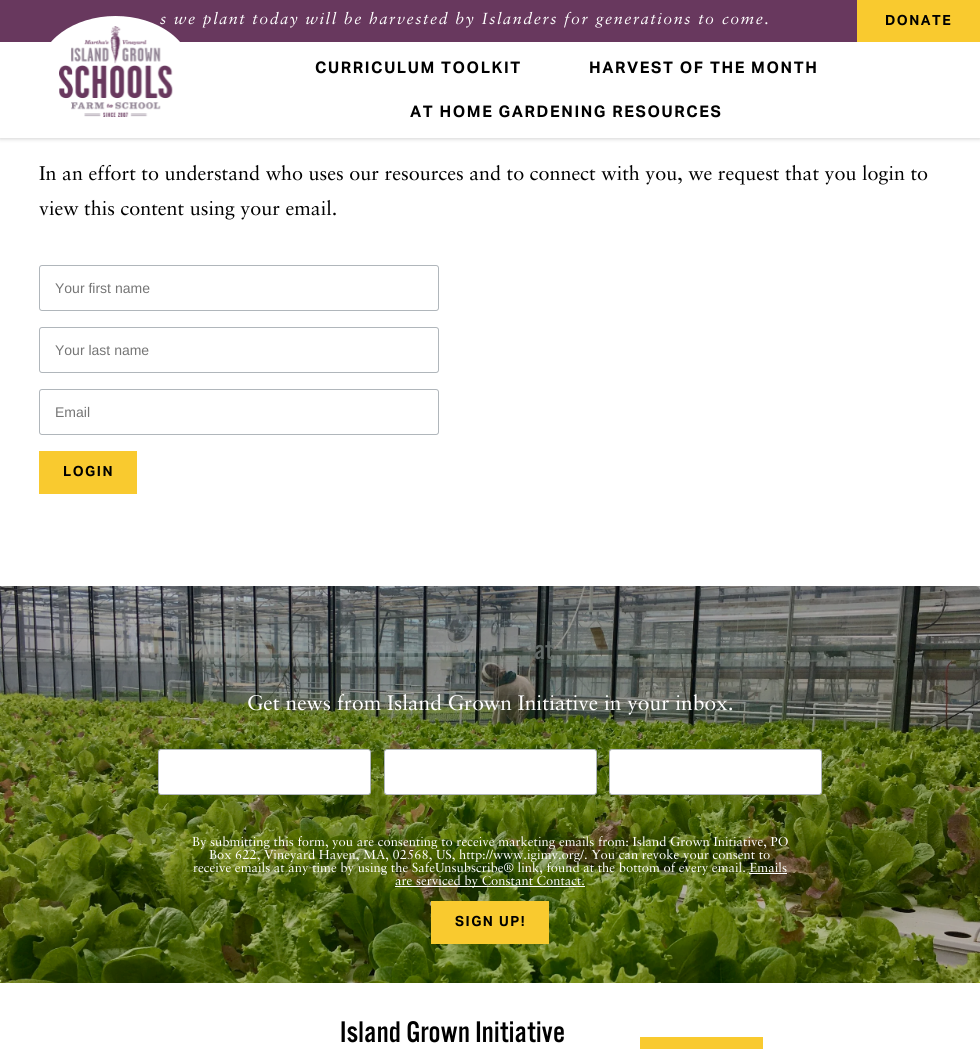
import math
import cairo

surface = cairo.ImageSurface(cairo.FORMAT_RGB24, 980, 1049)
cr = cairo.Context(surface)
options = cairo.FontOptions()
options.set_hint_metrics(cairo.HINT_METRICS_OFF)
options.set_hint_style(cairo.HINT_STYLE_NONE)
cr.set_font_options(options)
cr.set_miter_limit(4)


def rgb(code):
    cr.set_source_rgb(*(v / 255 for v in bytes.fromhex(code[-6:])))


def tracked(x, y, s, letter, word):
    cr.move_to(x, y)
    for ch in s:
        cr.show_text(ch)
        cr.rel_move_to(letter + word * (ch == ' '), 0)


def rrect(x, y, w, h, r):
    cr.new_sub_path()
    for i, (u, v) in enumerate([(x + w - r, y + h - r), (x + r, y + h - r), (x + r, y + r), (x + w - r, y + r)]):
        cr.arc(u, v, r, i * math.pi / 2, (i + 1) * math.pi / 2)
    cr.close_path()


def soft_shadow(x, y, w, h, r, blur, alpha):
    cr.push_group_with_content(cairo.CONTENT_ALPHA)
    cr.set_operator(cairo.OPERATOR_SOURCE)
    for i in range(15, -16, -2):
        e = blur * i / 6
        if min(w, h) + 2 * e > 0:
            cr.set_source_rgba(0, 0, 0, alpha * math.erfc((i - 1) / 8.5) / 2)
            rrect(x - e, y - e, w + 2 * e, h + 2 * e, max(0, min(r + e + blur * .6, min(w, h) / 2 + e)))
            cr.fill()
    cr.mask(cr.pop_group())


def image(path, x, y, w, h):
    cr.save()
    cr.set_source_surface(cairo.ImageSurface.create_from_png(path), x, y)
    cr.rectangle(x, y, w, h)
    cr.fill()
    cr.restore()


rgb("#ffffff")
cr.paint()
cr.save()
cr.rectangle(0, 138, 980, 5)
cr.clip()
rgb("#c0c0c0")
soft_shadow(0, 0, 980, 138, 0, 2.5, 1)
cr.restore()
rgb("#68385e")
cr.rectangle(0, 0, 857, 42)
cr.fill()
rgb("#f9ca2f")
cr.rectangle(857, 0, 123, 42)
cr.fill()
rgb("#ffffff")
cr.new_path()
cr.move_to(115.5, 16)
cr.curve_to(157.5, 16, 192, 41, 192, 72)
cr.curve_to(192, 103, 157.5, 128, 115.5, 128)
cr.curve_to(73.5, 128, 39, 103, 39, 72)
cr.curve_to(39, 41, 73.5, 16, 115.5, 16)
cr.close_path()
cr.fill()
rrect(39.5, 265.5, 399, 45, 2.5)
rgb("#b0b6bb")
cr.set_line_width(1)
cr.stroke()
rrect(39.5, 327.5, 399, 45, 2.5)
cr.stroke()
rrect(39.5, 389.5, 399, 45, 2.5)
cr.stroke()
rgb("#f9ca2f")
cr.rectangle(39, 451, 98, 43)
cr.fill()
image("img/2.png", 0, 586, 980, 397)
rgb("#ffffff")
rrect(158.5, 749.5, 212, 45, 2.5)
cr.fill_preserve()
rgb("#b0b6bb")
cr.stroke()
rgb("#ffffff")
rrect(384.5, 749.5, 212, 45, 2.5)
cr.fill_preserve()
rgb("#b0b6bb")
cr.stroke()
rgb("#ffffff")
rrect(609.5, 749.5, 212, 45, 2.5)
cr.fill_preserve()
rgb("#b0b6bb")
cr.stroke()
for x, y, w, h, color in [
    (749, 873, 38, 1, "#ffffff"),
    (395, 886, 190, 1, "#ffffff"),
    (431, 901, 118, 43, "#f9ca2f"),
    (640, 1037, 123, 12, "#f9ca2f"),
]:
    rgb(color)
    cr.rectangle(x, y, w, h)
    cr.fill()
cr.select_font_face("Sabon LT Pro", cairo.FONT_SLANT_ITALIC)
cr.set_font_size(16)
rgb("#ffffff")
tracked(160, 24, "s we plant today will be harvested by Islanders for generations to come.", 1.6, 0)
cr.select_font_face("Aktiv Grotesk", cairo.FONT_SLANT_NORMAL, cairo.FONT_WEIGHT_BOLD)
cr.set_font_size(14)
rgb("#000000")
tracked(885, 25, "DONATE", 1.5, 0)
image("img/1.png", 59, 26, 114, 91)
cr.set_font_size(16)
for x, y, s in [
    (315, 73, "CURRICULUM TOOLKIT"),
    (589, 73, "HARVEST OF THE MONTH"),
    (410, 117, "AT HOME GARDENING RESOURCES"),
]:
    tracked(x, y, s, 1.6, 0)
cr.select_font_face("Sabon LT Pro")
cr.set_font_size(19.8)
cr.move_to(39, 180)
cr.show_text("In an effort to understand who uses our resources and to connect with you, we request that you login to")
cr.move_to(39, 215)
cr.show_text("view this content using your email.")
cr.select_font_face("Liberation Sans")
cr.set_font_size(14)
rgb("#757575")
for x, y, s in [
    (55, 293, "Your first name"),
    (55, 355, "Your last name"),
    (55, 417, "Email"),
]:
    cr.move_to(x, y)
    cr.show_text(s)
cr.select_font_face("Aktiv Grotesk", cairo.FONT_SLANT_NORMAL, cairo.FONT_WEIGHT_BOLD)
rgb("#000000")
tracked(63, 476, "LOGIN", 1.5, 0)
cr.select_font_face("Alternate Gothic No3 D")
cr.set_font_size(28)
rgb("#616866")
cr.move_to(534, 659)
cr.show_text("at")
cr.select_font_face("Sabon LT Pro")
cr.set_font_size(21)
rgb("#ffffff")
cr.move_to(247, 710)
cr.show_text("Get news from Island Grown Initiative in your inbox.")
cr.set_font_size(13)
for x, y, s in [
    (192, 846, "By submitting this form, you are consenting to receive marketing emails from: Island Grown Initiative, PO"),
    (209, 859, "Box 622, Vineyard Haven, MA, 02568, US, http://www.igimv.org/. You can revoke your consent to"),
    (193, 872, "receive emails at any time by using the SafeUnsubscribe® link, found at the bottom of every email. Emails"),
    (395, 885, "are serviced by Constant Contact."),
]:
    cr.move_to(x, y)
    cr.show_text(s)
cr.select_font_face("Aktiv Grotesk", cairo.FONT_SLANT_NORMAL, cairo.FONT_WEIGHT_BOLD)
cr.set_font_size(14)
rgb("#000000")
tracked(455, 926, "SIGN UP!", 1.5, 0)
cr.select_font_face("Alternate Gothic No3 D")
cr.set_font_size(31)
tracked(340, 1042, "Island Grown Initiative", 0.3, 0)
surface.write_to_png("page.png")
